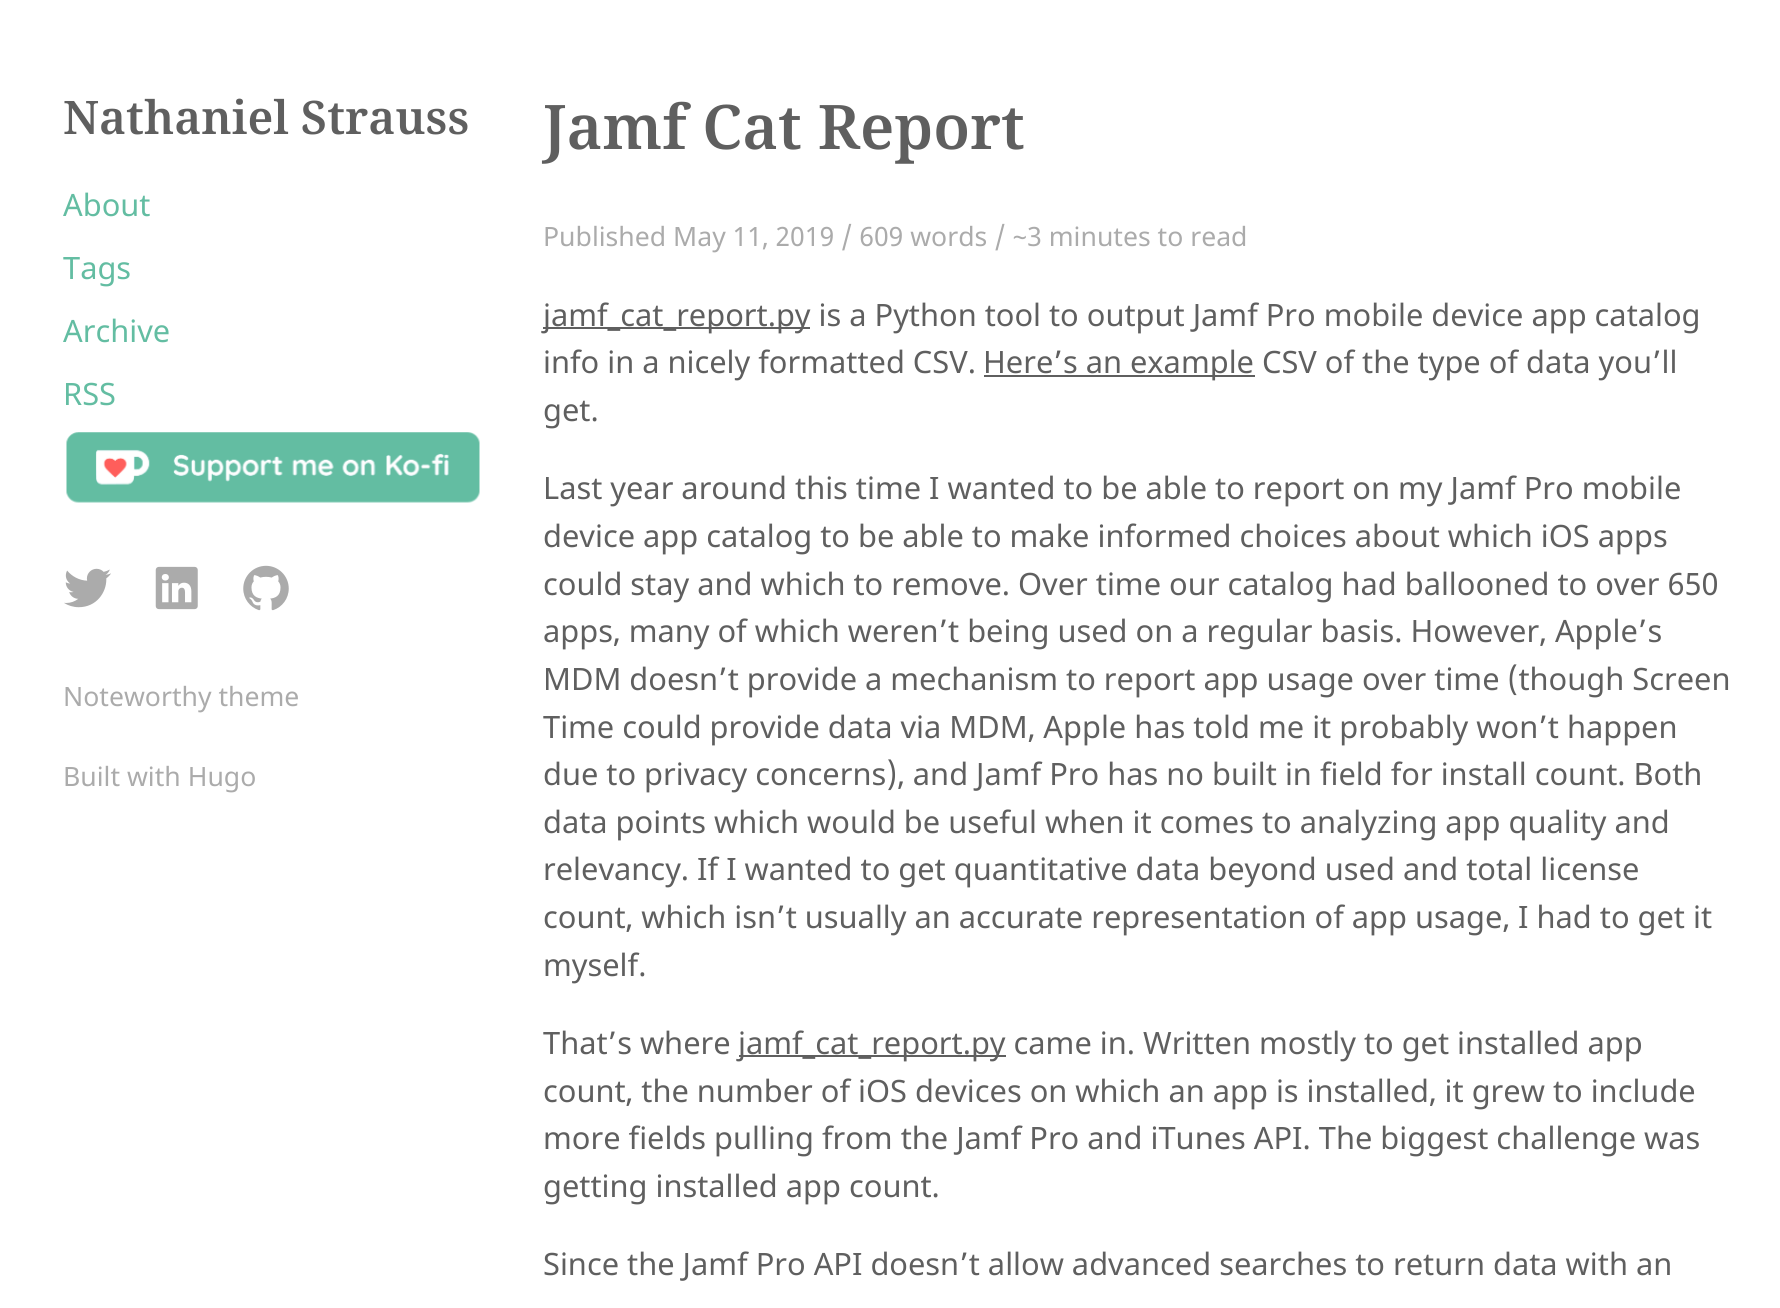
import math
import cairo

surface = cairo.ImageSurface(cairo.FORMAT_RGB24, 1780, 1308)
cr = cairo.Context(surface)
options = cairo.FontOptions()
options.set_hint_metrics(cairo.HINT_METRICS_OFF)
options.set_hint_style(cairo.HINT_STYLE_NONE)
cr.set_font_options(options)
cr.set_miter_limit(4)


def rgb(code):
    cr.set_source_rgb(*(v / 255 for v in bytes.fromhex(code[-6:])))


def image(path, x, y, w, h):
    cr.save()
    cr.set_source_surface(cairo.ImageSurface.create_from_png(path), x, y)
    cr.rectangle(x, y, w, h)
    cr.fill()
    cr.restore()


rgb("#ffffff")
cr.paint()
image("img/1.png", 66, 432, 414, 71)
image("img/2.png", 64, 568, 47, 40)
image("img/3.png", 155, 566, 43, 44)
image("img/4.png", 243, 565, 46, 46)
for x, y, w, h, color in [
    (543, 327, 267, 2, "#5f5f5f"),
    (984, 375, 271, 2, "#5f5f5f"),
    (739, 1055, 267, 2, "#5f5f5f"),
]:
    rgb(color)
    cr.rectangle(x, y, w, h)
    cr.fill()
cr.select_font_face("Noto Serif SemiBold")
cr.set_font_size(46.25)
cr.move_to(63, 134)
cr.show_text("Nathaniel Strauss")
cr.select_font_face("Noto Sans")
cr.set_font_size(30.8)
rgb("#63bda2")
for x, y, s in [
    (63, 216, "About"),
    (63, 279, "Tags"),
    (63, 342, "Archive"),
    (63, 405, "RSS"),
]:
    cr.move_to(x, y)
    cr.show_text(s)
cr.set_font_size(26.6)
rgb("#ababab")
cr.move_to(63, 706)
cr.show_text("Noteworthy theme")
cr.move_to(63, 786)
cr.show_text("Built with Hugo")
cr.select_font_face("Noto Serif SemiBold")
cr.set_font_size(61.5)
rgb("#5f5f5f")
cr.move_to(543, 149)
cr.show_text("Jamf Cat Report")
cr.select_font_face("Noto Sans")
cr.set_font_size(26.6)
rgb("#ababab")
cr.move_to(543, 246)
cr.show_text("Published May 11, 2019 / 609 words / ~3 minutes to read")
cr.set_font_size(30.8)
rgb("#5f5f5f")
for x, y, s in [
    (543, 326, "jamf_cat_report.py is a Python tool to output Jamf Pro mobile device app catalog"),
    (543, 373, "info in a nicely formatted CSV."),
    (983, 373, "Here’s an example CSV of the type of data you’ll"),
    (543, 421, "get."),
    (543, 499, "Last year around this time I wanted to be able to report on my Jamf Pro mobile"),
    (543, 547, "device app catalog to be able to make informed choices about which iOS apps"),
    (543, 595, "could stay and which to remove. Over time our catalog had ballooned to over 650"),
    (543, 642, "apps, many of which weren’t being used on a regular basis. However, Apple’s"),
    (543, 690, "MDM doesn’t provide a mechanism to report app usage over time (though Screen"),
    (543, 738, "Time could provide data via MDM, Apple has told me it probably won’t happen"),
    (543, 785, "due to privacy concerns), and Jamf Pro has no built in field for install count. Both"),
    (543, 833, "data points which would be useful when it comes to analyzing app quality and"),
    (543, 880, "relevancy. If I wanted to get quantitative data beyond used and total license"),
    (543, 928, "count, which isn’t usually an accurate representation of app usage, I had to get it"),
    (543, 976, "myself."),
    (543, 1054, "That’s where"),
    (738, 1054, "jamf_cat_report.py came in. Written mostly to get installed app"),
    (543, 1102, "count, the number of iOS devices on which an app is installed, it grew to include"),
    (543, 1149, "more fields pulling from the Jamf Pro and iTunes API. The biggest challenge was"),
    (543, 1197, "getting installed app count."),
    (543, 1275, "Since the Jamf Pro API doesn’t allow advanced searches to return data with an"),
]:
    cr.move_to(x, y)
    cr.show_text(s)
surface.write_to_png("page.png")
